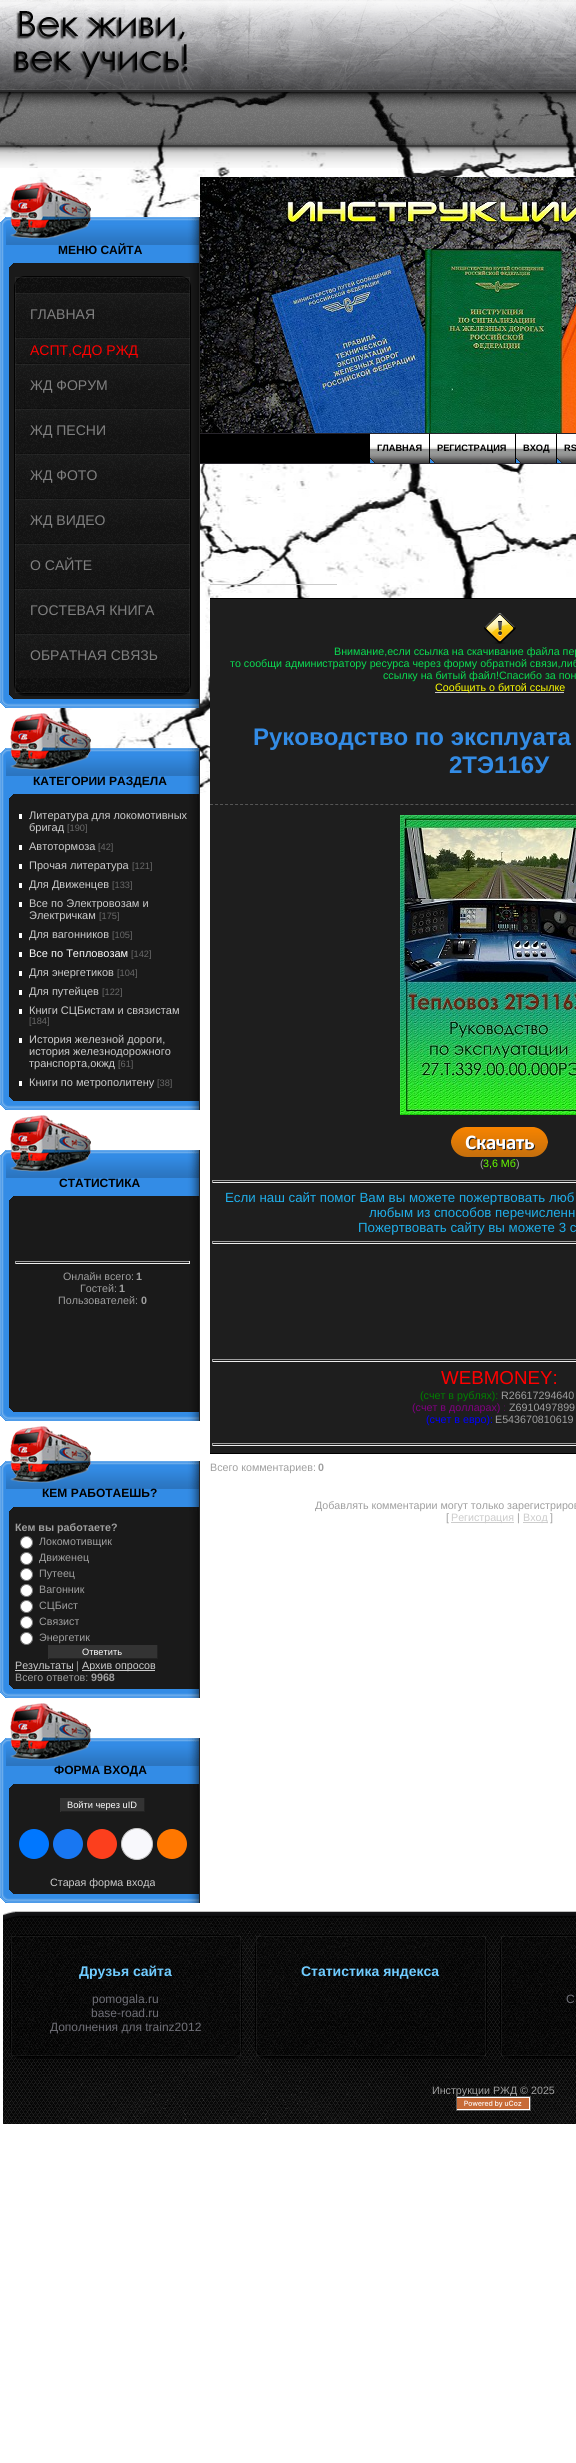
import math
import cairo

surface = cairo.ImageSurface(cairo.FORMAT_RGB24, 576, 2463)
cr = cairo.Context(surface)
options = cairo.FontOptions()
options.set_hint_metrics(cairo.HINT_METRICS_OFF)
options.set_hint_style(cairo.HINT_STYLE_NONE)
cr.set_font_options(options)
cr.set_miter_limit(4)


def rgb(code):
    cr.set_source_rgb(*(v / 255 for v in bytes.fromhex(code[-6:])))


def rrect(x, y, w, h, r):
    cr.new_sub_path()
    for i, (u, v) in enumerate([(x + w - r, y + h - r), (x + r, y + h - r), (x + r, y + r), (x + w - r, y + r)]):
        cr.arc(u, v, r, i * math.pi / 2, (i + 1) * math.pi / 2)
    cr.close_path()


def image(path, x, y, w, h):
    cr.save()
    cr.set_source_surface(cairo.ImageSurface.create_from_png(path), x, y)
    cr.rectangle(x, y, w, h)
    cr.fill()
    cr.restore()


rgb("#ffffff")
cr.paint()
image("img/1.png", 0, 92, 576, 701)
image("img/2.png", 0, 0, 576, 168)
image("img/3.png", 13, 11, 175, 69)
image("img/4.png", 0, 182, 200, 85)
image("img/5.png", 0, 267, 200, 441)
rgb("#0d0d0d")
cr.new_path()
cr.move_to(16, 283)
cr.curve_to(15, 285, 14, 287, 14, 289)
cr.line_to(14, 685)
cr.curve_to(14, 691, 19, 696, 25, 696)
cr.line_to(180, 696)
cr.curve_to(186, 696, 191, 691, 191, 685)
cr.line_to(191, 289)
cr.curve_to(191, 287, 190, 285, 189, 283)
cr.line_to(190, 287)
cr.line_to(190, 683)
cr.curve_to(190, 689, 186, 693, 180, 693)
cr.line_to(25, 693)
cr.curve_to(19, 693, 15, 689, 15, 683)
cr.line_to(15, 287)
cr.close_path()
cr.fill()
rrect(14.5, 276.5, 176, 417, 10.5)
cr.set_source_rgba(0, 0, 0, 0.9)
cr.set_line_width(1)
cr.stroke()
image("img/6.png", 15, 277, 175, 416)
cr.rectangle(15.5, 277.5, 174, 415)
cr.set_source_rgba(1, 1, 1, 0.06)
cr.stroke()
image("img/7.png", 15, 293, 175, 44)
image("img/8.png", 15, 338, 175, 25)
image("img/9.png", 15, 364, 175, 44)
image("img/10.png", 15, 409, 175, 44)
image("img/11.png", 15, 454, 175, 44)
image("img/12.png", 15, 499, 175, 44)
image("img/13.png", 15, 544, 175, 44)
image("img/14.png", 15, 589, 175, 44)
image("img/15.png", 15, 634, 175, 44)
image("img/16.png", 0, 713, 200, 85)
image("img/17.png", 0, 798, 200, 312)
for x, y, w, h, color in [
    (19, 814, 3, 5, "#ffffff"),
    (19, 845, 3, 5, "#ffffff"),
    (19, 864, 3, 5, "#ffffff"),
    (19, 883, 3, 5, "#ffffff"),
    (19, 902, 3, 5, "#ffffff"),
    (19, 933, 3, 5, "#ffffff"),
    (19, 952, 3, 5, "#ffffff"),
    (19, 971, 3, 5, "#ffffff"),
    (19, 990, 3, 5, "#ffffff"),
    (19, 1009, 3, 5, "#ffffff"),
    (19, 1038, 3, 5, "#ffffff"),
    (19, 1081, 3, 5, "#ffffff"),
]:
    rgb(color)
    cr.rectangle(x, y, w, h)
    cr.fill()
image("img/18.png", 0, 1115, 200, 85)
image("img/19.png", 0, 1200, 200, 221)
for x, y, w, h, color in [
    (15, 1261, 175, 1, "#9f9f9f"),
    (189, 1261, 1, 3, "#eeeeee"),
    (15, 1263, 175, 1, "#eeeeee"),
    (15, 1261, 1, 3, "#9f9f9f"),
]:
    rgb(color)
    cr.rectangle(x, y, w, h)
    cr.fill()
image("img/18.png", 0, 1426, 200, 85)
image("img/20.png", 0, 1511, 200, 187)
rgb("#ffffff")
cr.arc(26.5, 1542.5, 6, 0, 2 * math.pi)
cr.fill_preserve()
rgb("#767676")
cr.stroke()
rgb("#ffffff")
cr.arc(26.5, 1558.5, 6, 0, 2 * math.pi)
cr.fill_preserve()
rgb("#767676")
cr.stroke()
rgb("#ffffff")
cr.arc(26.5, 1574.5, 6, 0, 2 * math.pi)
cr.fill_preserve()
rgb("#767676")
cr.stroke()
rgb("#ffffff")
cr.arc(26.5, 1590.5, 6, 0, 2 * math.pi)
cr.fill_preserve()
rgb("#767676")
cr.stroke()
rgb("#ffffff")
cr.arc(26.5, 1606.5, 6, 0, 2 * math.pi)
cr.fill_preserve()
rgb("#767676")
cr.stroke()
rgb("#ffffff")
cr.arc(26.5, 1622.5, 6, 0, 2 * math.pi)
cr.fill_preserve()
rgb("#767676")
cr.stroke()
rgb("#ffffff")
cr.arc(26.5, 1638.5, 6, 0, 2 * math.pi)
cr.fill_preserve()
rgb("#767676")
cr.stroke()
for x, y, w, h, color in [
    (49, 1645, 108, 13, "#333333"),
    (157, 1645, 1, 14, "#222222"),
    (48, 1658, 110, 1, "#222222"),
    (48, 1645, 1, 14, "#333333"),
    (15, 1670, 58, 1, "#cccccc"),
    (82, 1670, 73, 1, "#cccccc"),
]:
    rgb(color)
    cr.rectangle(x, y, w, h)
    cr.fill()
image("img/18.png", 0, 1703, 200, 85)
image("img/21.png", 0, 1788, 200, 115)
for x, y, w, h, color in [
    (61, 1798, 83, 13, "#333333"),
    (144, 1798, 1, 14, "#222222"),
    (60, 1811, 85, 1, "#222222"),
    (60, 1798, 1, 14, "#333333"),
]:
    rgb(color)
    cr.rectangle(x, y, w, h)
    cr.fill()
rgb("#0077ff")
cr.arc(34, 1844, 15, 0, 2 * math.pi)
cr.fill()
rgb("#1877f2")
cr.arc(68, 1844, 15, 0, 2 * math.pi)
cr.fill()
rgb("#fc3f1d")
cr.arc(102, 1844, 15, 0, 2 * math.pi)
cr.fill()
rgb("#f8f8fc")
cr.arc(137, 1844, 15.5, 0, 2 * math.pi)
cr.fill_preserve()
rgb("#c4c4c4")
cr.stroke()
rgb("#ff7700")
cr.arc(172, 1844, 15, 0, 2 * math.pi)
cr.fill()
image("img/22.png", 200, 177, 376, 256)
for x, y, w, h, color in [
    (200, 434, 357, 29, "#000000"),
    (200, 433, 376, 1, "#27242b"),
    (200, 463, 376, 1, "#27242b"),
]:
    rgb(color)
    cr.rectangle(x, y, w, h)
    cr.fill()
image("img/23.png", 370, 434, 59, 29)
image("img/24.png", 430, 434, 85, 29)
image("img/25.png", 516, 434, 40, 29)
image("img/26.png", 557, 434, 19, 29)
for x, y, w, h, color in [
    (210, 584, 127, 1, "#cccccc"),
    (210, 599, 366, 854, "#1e1e1e"),
    (210, 598, 366, 1, "#000000"),
    (210, 1453, 366, 1, "#000000"),
]:
    rgb(color)
    cr.rectangle(x, y, w, h)
    cr.fill()
image("img/27.png", 484, 613, 32, 31)
rgb("#cccccc")
cr.rectangle(435, 692, 129, 1)
cr.fill()
cr.new_path()
cr.move_to(210, 804.5)
cr.line_to(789, 804.5)
rgb("#555555")
cr.set_dash([3, 2.01])
cr.stroke()
image("img/28.png", 400, 815, 176, 300)
image("img/29.png", 451, 1127, 97, 30)
for x, y, w, h, color in [
    (212, 1180, 364, 1, "#9f9f9f"),
    (212, 1182, 364, 1, "#eeeeee"),
    (212, 1180, 1, 3, "#9f9f9f"),
    (212, 1241, 364, 1, "#9f9f9f"),
    (212, 1243, 364, 1, "#eeeeee"),
    (212, 1241, 1, 3, "#9f9f9f"),
    (212, 1359, 364, 1, "#9f9f9f"),
    (212, 1361, 364, 1, "#eeeeee"),
    (212, 1359, 1, 3, "#9f9f9f"),
    (212, 1443, 364, 1, "#9f9f9f"),
    (212, 1445, 364, 1, "#eeeeee"),
    (212, 1443, 1, 3, "#9f9f9f"),
    (451, 1522, 63, 1, "#cccccc"),
    (523, 1522, 25, 1, "#cccccc"),
]:
    rgb(color)
    cr.rectangle(x, y, w, h)
    cr.fill()
image("img/30.png", 3, 1911, 573, 102)
image("img/31.png", 3, 2013, 573, 111)
cr.set_source_rgba(0, 0, 0, 0.5)
cr.new_path()
cr.move_to(12, 1942)
cr.curve_to(11, 1944, 10, 1946, 10, 1948)
cr.line_to(10, 2048)
cr.curve_to(10, 2054, 15, 2059, 21, 2059)
cr.line_to(231, 2059)
cr.curve_to(237, 2059, 242, 2054, 242, 2048)
cr.line_to(242, 1948)
cr.curve_to(242, 1946, 241, 1944, 240, 1942)
cr.line_to(241, 1946)
cr.line_to(241, 2046)
cr.curve_to(241, 2052, 237, 2056, 231, 2056)
cr.line_to(21, 2056)
cr.curve_to(15, 2056, 11, 2052, 11, 2046)
cr.line_to(11, 1946)
cr.close_path()
cr.fill()
rrect(10.5, 1935.5, 231, 121, 10.5)
cr.set_source_rgba(0, 0, 0, 0.9)
cr.set_dash([])
cr.stroke()
image("img/32.png", 11, 1936, 230, 120)
cr.rectangle(11.5, 1936.5, 229, 119)
cr.set_source_rgba(1, 1, 1, 0.06)
cr.stroke()
cr.set_source_rgba(0, 0, 0, 0.5)
cr.new_path()
cr.move_to(257, 1942)
cr.curve_to(256, 1944, 255, 1946, 255, 1948)
cr.line_to(255, 2048)
cr.curve_to(255, 2054, 260, 2059, 266, 2059)
cr.line_to(476, 2059)
cr.curve_to(482, 2059, 487, 2054, 487, 2048)
cr.line_to(487, 1948)
cr.curve_to(487, 1946, 486, 1944, 485, 1942)
cr.line_to(486, 1946)
cr.line_to(486, 2046)
cr.curve_to(486, 2052, 482, 2056, 476, 2056)
cr.line_to(266, 2056)
cr.curve_to(260, 2056, 256, 2052, 256, 2046)
cr.line_to(256, 1946)
cr.close_path()
cr.fill()
rrect(255.5, 1935.5, 231, 121, 10.5)
cr.set_source_rgba(0, 0, 0, 0.9)
cr.stroke()
image("img/33.png", 256, 1936, 230, 120)
cr.rectangle(256.5, 1936.5, 229, 119)
cr.set_source_rgba(1, 1, 1, 0.06)
cr.stroke()
cr.set_source_rgba(0, 0, 0, 0.5)
cr.new_path()
cr.move_to(502, 1942)
cr.curve_to(501, 1944, 500, 1946, 500, 1948)
cr.line_to(500, 2048)
cr.curve_to(500, 2054, 505, 2059, 511, 2059)
cr.line_to(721, 2059)
cr.curve_to(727, 2059, 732, 2054, 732, 2048)
cr.line_to(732, 1948)
cr.curve_to(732, 1946, 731, 1944, 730, 1942)
cr.line_to(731, 1946)
cr.line_to(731, 2046)
cr.curve_to(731, 2052, 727, 2056, 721, 2056)
cr.line_to(511, 2056)
cr.curve_to(505, 2056, 501, 2052, 501, 2046)
cr.line_to(501, 1946)
cr.close_path()
cr.fill()
rrect(500.5, 1935.5, 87, 121, 10.5)
cr.set_source_rgba(0, 0, 0, 0.9)
cr.stroke()
image("img/34.png", 501, 1936, 75, 120)
cr.rectangle(501.5, 1936.5, 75, 119)
cr.set_source_rgba(1, 1, 1, 0.06)
cr.stroke()
cr.select_font_face("Liberation Sans", cairo.FONT_SLANT_NORMAL, cairo.FONT_WEIGHT_BOLD)
cr.set_font_size(12)
rgb("#000000")
cr.move_to(58, 254)
cr.show_text("МЕНЮ САЙТА")
cr.select_font_face("Liberation Sans")
cr.set_font_size(14)
rgb("#808080")
cr.move_to(30, 319)
cr.show_text("ГЛАВНАЯ")
rgb("#ff0000")
cr.move_to(30, 355)
cr.show_text("АСПТ,СДО РЖД")
rgb("#808080")
for x, y, s in [
    (30, 390, "ЖД ФОРУМ"),
    (30, 435, "ЖД ПЕСНИ"),
    (30, 480, "ЖД ФОТО"),
    (30, 525, "ЖД ВИДЕО"),
    (30, 570, "О САЙТЕ"),
    (30, 615, "ГОСТЕВАЯ КНИГА"),
    (30, 660, "ОБРАТНАЯ СВЯЗЬ"),
]:
    cr.move_to(x, y)
    cr.show_text(s)
cr.select_font_face("Liberation Sans", cairo.FONT_SLANT_NORMAL, cairo.FONT_WEIGHT_BOLD)
cr.set_font_size(12)
rgb("#000000")
cr.move_to(33, 785)
cr.show_text("КАТЕГОРИИ РАЗДЕЛА")
cr.select_font_face("Liberation Sans")
cr.set_font_size(11)
rgb("#cccccc")
cr.move_to(29, 819)
cr.show_text("Литература для локомотивных")
cr.move_to(29, 831)
cr.show_text("бригад")
cr.set_font_size(9.25)
rgb("#696969")
cr.move_to(67, 831)
cr.show_text("[190]")
cr.set_font_size(11)
rgb("#cccccc")
cr.move_to(29, 850)
cr.show_text("Автотормоза")
cr.set_font_size(9.25)
rgb("#696969")
cr.move_to(98, 850)
cr.show_text("[42]")
cr.set_font_size(11)
rgb("#cccccc")
cr.move_to(29, 869)
cr.show_text("Прочая литература")
cr.set_font_size(9.25)
rgb("#696969")
cr.move_to(132, 869)
cr.show_text("[121]")
cr.set_font_size(11)
rgb("#cccccc")
cr.move_to(29, 888)
cr.show_text("Для Движенцев")
cr.set_font_size(9.25)
rgb("#696969")
cr.move_to(112, 888)
cr.show_text("[133]")
cr.set_font_size(11)
rgb("#cccccc")
cr.move_to(29, 907)
cr.show_text("Все по Электровозам и")
cr.move_to(29, 919)
cr.show_text("Электричкам")
cr.set_font_size(9.25)
rgb("#696969")
cr.move_to(99, 919)
cr.show_text("[175]")
cr.set_font_size(11)
rgb("#cccccc")
cr.move_to(29, 938)
cr.show_text("Для вагонников")
cr.set_font_size(9.25)
rgb("#696969")
cr.move_to(112, 938)
cr.show_text("[105]")
cr.set_font_size(11)
rgb("#ffffff")
cr.move_to(29, 957)
cr.show_text("Все по Тепловозам")
cr.set_font_size(9.25)
rgb("#696969")
cr.move_to(131, 957)
cr.show_text("[142]")
cr.set_font_size(11)
rgb("#cccccc")
cr.move_to(29, 976)
cr.show_text("Для энергетиков")
cr.set_font_size(9.25)
rgb("#696969")
cr.move_to(117, 976)
cr.show_text("[104]")
cr.set_font_size(11)
rgb("#cccccc")
cr.move_to(29, 995)
cr.show_text("Для путейцев")
cr.set_font_size(9.25)
rgb("#696969")
cr.move_to(102, 995)
cr.show_text("[122]")
cr.set_font_size(11)
rgb("#cccccc")
cr.move_to(29, 1014)
cr.show_text("Книги СЦБистам и связистам")
cr.set_font_size(9.25)
rgb("#696969")
cr.move_to(29, 1024)
cr.show_text("[184]")
cr.set_font_size(11)
rgb("#cccccc")
for x, y, s in [
    (29, 1043, "История железной дороги,"),
    (29, 1055, "история железнодорожного"),
    (29, 1067, "транспорта,окжд"),
]:
    cr.move_to(x, y)
    cr.show_text(s)
cr.set_font_size(9.25)
rgb("#696969")
cr.move_to(118, 1067)
cr.show_text("[61]")
cr.set_font_size(11)
rgb("#cccccc")
cr.move_to(29, 1086)
cr.show_text("Книги по метрополитену")
cr.set_font_size(9.25)
rgb("#696969")
cr.move_to(157, 1086)
cr.show_text("[38]")
cr.select_font_face("Liberation Sans", cairo.FONT_SLANT_NORMAL, cairo.FONT_WEIGHT_BOLD)
cr.set_font_size(12)
rgb("#000000")
cr.move_to(59, 1187)
cr.show_text("СТАТИСТИКА")
cr.select_font_face("Liberation Sans")
cr.set_font_size(10.7)
rgb("#9f9f9f")
cr.move_to(63, 1280)
cr.show_text("Онлайн всего:")
cr.select_font_face("Liberation Sans", cairo.FONT_SLANT_NORMAL, cairo.FONT_WEIGHT_BOLD)
cr.move_to(136, 1280)
cr.show_text("1")
cr.select_font_face("Liberation Sans")
cr.move_to(80, 1292)
cr.show_text("Гостей:")
cr.select_font_face("Liberation Sans", cairo.FONT_SLANT_NORMAL, cairo.FONT_WEIGHT_BOLD)
cr.move_to(119, 1292)
cr.show_text("1")
cr.select_font_face("Liberation Sans")
cr.move_to(58, 1304)
cr.show_text("Пользователей:")
cr.select_font_face("Liberation Sans", cairo.FONT_SLANT_NORMAL, cairo.FONT_WEIGHT_BOLD)
cr.move_to(141, 1304)
cr.show_text("0")
cr.set_font_size(12)
rgb("#000000")
cr.move_to(42, 1497)
cr.show_text("КЕМ РАБОТАЕШЬ?")
cr.set_font_size(10.7)
rgb("#9f9f9f")
cr.move_to(15, 1531)
cr.show_text("Кем вы работаете?")
cr.select_font_face("Liberation Sans")
for x, y, s in [
    (39, 1545, "Локомотивщик"),
    (39, 1561, "Движенец"),
    (39, 1577, "Путеец"),
    (39, 1593, "Вагонник"),
    (39, 1609, "СЦБист"),
    (39, 1625, "Связист"),
    (39, 1641, "Энергетик"),
]:
    cr.move_to(x, y)
    cr.show_text(s)
cr.set_font_size(9.25)
rgb("#ffffff")
cr.move_to(82, 1655)
cr.show_text("Ответить")
cr.set_font_size(10.7)
rgb("#cccccc")
cr.move_to(15, 1669)
cr.show_text("Результаты")
rgb("#9f9f9f")
cr.move_to(76, 1669)
cr.show_text("|")
rgb("#cccccc")
cr.move_to(82, 1669)
cr.show_text("Архив опросов")
rgb("#9f9f9f")
cr.move_to(15, 1681)
cr.show_text("Всего ответов:")
cr.select_font_face("Liberation Sans", cairo.FONT_SLANT_NORMAL, cairo.FONT_WEIGHT_BOLD)
cr.move_to(91, 1681)
cr.show_text("9968")
cr.set_font_size(12)
rgb("#000000")
cr.move_to(54, 1774)
cr.show_text("ФОРМА ВХОДА")
cr.select_font_face("Liberation Sans")
cr.set_font_size(9.25)
rgb("#ffffff")
cr.move_to(67, 1808)
cr.show_text("Войти через uID")
cr.set_font_size(10.7)
rgb("#cccccc")
cr.move_to(50, 1886)
cr.show_text("Старая форма входа")
cr.select_font_face("Liberation Sans", cairo.FONT_SLANT_NORMAL, cairo.FONT_WEIGHT_BOLD)
cr.set_font_size(9.25)
rgb("#000000")
for x, y, s in [
    (377, 451, "ГЛАВНАЯ"),
    (437, 451, "РЕГИСТРАЦИЯ"),
    (523, 451, "ВХОД"),
    (564, 451, "RS"),
]:
    cr.move_to(x, y)
    cr.show_text(s)
cr.select_font_face("Liberation Sans")
cr.set_font_size(10.7)
rgb("#0bda51")
for x, y, s in [
    (334, 655, "Внимание,если ссылка на скачивание файла пер"),
    (230, 667, "то сообщи администратору ресурса через форму обратной связи,либ"),
    (383, 679, "ссылку на битый файл!Спасибо за пон"),
]:
    cr.move_to(x, y)
    cr.show_text(s)
rgb("#ffff00")
cr.move_to(435, 691)
cr.show_text("Сообщить о битой ссылке")
cr.select_font_face("Liberation Sans", cairo.FONT_SLANT_NORMAL, cairo.FONT_WEIGHT_BOLD)
cr.set_font_size(24)
rgb("#338ce6")
cr.move_to(253, 745)
cr.show_text("Руководство по эксплуата")
cr.move_to(449, 773)
cr.show_text("2ТЭ116У")
cr.select_font_face("Liberation Sans")
cr.set_font_size(10.7)
rgb("#9f9f9f")
cr.move_to(480, 1167)
cr.show_text("(")
rgb("#66ff00")
cr.move_to(483, 1167)
cr.show_text("3,6 Мб")
rgb("#9f9f9f")
cr.move_to(516, 1167)
cr.show_text(")")
cr.set_font_size(13.3)
rgb("#1faee9")
for x, y, s in [
    (225, 1202, "Если наш сайт помог Вам вы можете пожертвовать люб"),
    (369, 1217, "любым из способов перечисленн"),
    (358, 1232, "Пожертвовать сайту вы можете 3 с"),
]:
    cr.move_to(x, y)
    cr.show_text(s)
cr.set_font_size(18.75)
rgb("#ff0000")
cr.move_to(441, 1384)
cr.show_text("WEBMONEY:")
cr.set_font_size(10.7)
rgb("#008000")
cr.move_to(420, 1399)
cr.show_text("(счет в рублях):")
rgb("#9f9f9f")
cr.move_to(501, 1399)
cr.show_text("R26617294640")
rgb("#800080")
cr.move_to(412, 1411)
cr.show_text("(счет в долларах) :")
rgb("#9f9f9f")
cr.move_to(509, 1411)
cr.show_text("Z6910497899")
rgb("#0000ff")
cr.move_to(426, 1423)
cr.show_text("(счет в евро):")
rgb("#9f9f9f")
cr.move_to(495, 1423)
cr.show_text("E543670810619")
cr.move_to(210, 1471)
cr.show_text("Всего комментариев:")
cr.select_font_face("Liberation Sans", cairo.FONT_SLANT_NORMAL, cairo.FONT_WEIGHT_BOLD)
cr.move_to(318, 1471)
cr.show_text("0")
cr.select_font_face("Liberation Sans")
cr.move_to(315, 1509)
cr.show_text("Добавлять комментарии могут только зарегистриров")
cr.move_to(446, 1521)
cr.show_text("[")
rgb("#cccccc")
cr.move_to(451, 1521)
cr.show_text("Регистрация")
rgb("#9f9f9f")
cr.move_to(517, 1521)
cr.show_text("|")
rgb("#cccccc")
cr.move_to(523, 1521)
cr.show_text("Вход")
rgb("#9f9f9f")
cr.move_to(550, 1521)
cr.show_text("]")
cr.select_font_face("Liberation Sans", cairo.FONT_SLANT_NORMAL, cairo.FONT_WEIGHT_BOLD)
cr.set_font_size(14)
rgb("#70ccff")
cr.move_to(79, 1976)
cr.show_text("Друзья сайта")
cr.select_font_face("Liberation Sans")
cr.set_font_size(12)
rgb("#6f6f77")
for x, y, s in [
    (92, 2003, "pomogala.ru"),
    (91, 2017, "base-road.ru"),
    (50, 2031, "Дополнения для trainz2012"),
]:
    cr.move_to(x, y)
    cr.show_text(s)
cr.select_font_face("Liberation Sans", cairo.FONT_SLANT_NORMAL, cairo.FONT_WEIGHT_BOLD)
cr.set_font_size(14)
rgb("#70ccff")
cr.move_to(301, 1976)
cr.show_text("Статистика яндекса")
cr.select_font_face("Liberation Sans")
cr.set_font_size(12)
rgb("#6f6f77")
cr.move_to(566, 2003)
cr.show_text("С")
cr.set_font_size(10.7)
rgb("#9f9f9f")
cr.move_to(432, 2094)
cr.show_text("Инструкции РЖД © 2025")
image("img/35.png", 456, 2096, 75, 15)
surface.write_to_png("page.png")
